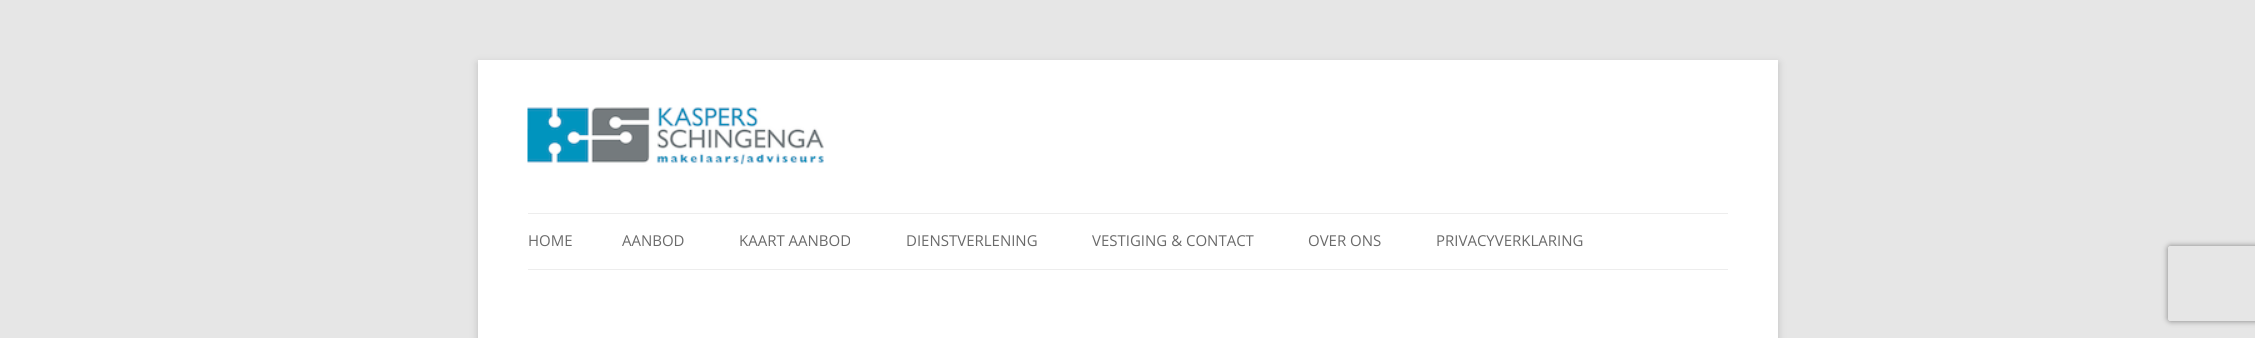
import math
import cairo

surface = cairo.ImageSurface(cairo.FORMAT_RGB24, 2255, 338)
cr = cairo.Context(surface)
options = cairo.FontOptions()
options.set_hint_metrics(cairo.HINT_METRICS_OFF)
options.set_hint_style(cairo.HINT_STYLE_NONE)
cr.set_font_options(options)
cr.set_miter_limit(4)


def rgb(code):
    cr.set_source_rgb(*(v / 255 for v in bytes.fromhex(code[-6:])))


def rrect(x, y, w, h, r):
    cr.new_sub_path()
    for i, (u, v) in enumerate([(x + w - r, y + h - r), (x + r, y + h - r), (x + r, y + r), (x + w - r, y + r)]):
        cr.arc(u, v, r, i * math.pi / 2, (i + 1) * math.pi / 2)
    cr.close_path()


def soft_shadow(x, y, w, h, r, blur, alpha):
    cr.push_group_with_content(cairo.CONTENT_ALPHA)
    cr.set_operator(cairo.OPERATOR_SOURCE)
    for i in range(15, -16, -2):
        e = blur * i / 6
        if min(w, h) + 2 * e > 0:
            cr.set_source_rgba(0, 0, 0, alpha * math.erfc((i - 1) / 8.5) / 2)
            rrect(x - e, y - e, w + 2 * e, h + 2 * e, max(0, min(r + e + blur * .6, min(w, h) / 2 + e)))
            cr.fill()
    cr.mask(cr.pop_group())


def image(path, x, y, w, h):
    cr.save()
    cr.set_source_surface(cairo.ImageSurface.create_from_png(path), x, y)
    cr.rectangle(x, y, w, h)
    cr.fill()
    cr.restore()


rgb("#e6e6e6")
cr.paint()
rgb("#646464")
soft_shadow(478, 63, 1300, 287, 0, 4, 0.3)
rgb("#ffffff")
cr.rectangle(478, 60, 1300, 278)
cr.fill()
image("img/1.png", 527, 107, 297, 58)
rgb("#ededed")
cr.rectangle(528, 213, 1200, 1)
cr.fill()
cr.rectangle(528, 269, 1200, 1)
cr.fill()
cr.save()
cr.set_fill_rule(cairo.FILL_RULE_EVEN_ODD)
cr.new_path()
cr.move_to(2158, 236)
cr.line_to(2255, 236)
cr.line_to(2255, 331)
cr.line_to(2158, 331)
cr.close_path()
cr.move_to(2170.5, 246)
cr.line_to(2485.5, 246)
cr.curve_to(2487, 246, 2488, 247, 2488, 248.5)
cr.line_to(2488, 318.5)
cr.curve_to(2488, 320, 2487, 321, 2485.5, 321)
cr.line_to(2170.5, 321)
cr.curve_to(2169, 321, 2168, 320, 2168, 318.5)
cr.line_to(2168, 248.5)
cr.curve_to(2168, 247, 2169, 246, 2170.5, 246)
cr.close_path()
cr.clip()
rgb("#808080")
soft_shadow(2168, 246, 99, 75, 2.5, 3, 1)
cr.restore()
cr.select_font_face("Open Sans")
cr.set_font_size(15)
rgb("#6a6a6a")
for x, y, s in [
    (528, 246, "HOME"),
    (622, 246, "AANBOD"),
    (739, 246, "KAART AANBOD"),
    (906, 246, "DIENSTVERLENING"),
    (1092, 246, "VESTIGING & CONTACT"),
    (1308, 246, "OVER ONS"),
    (1436, 246, "PRIVACYVERKLARING"),
]:
    cr.move_to(x, y)
    cr.show_text(s)
surface.write_to_png("page.png")
